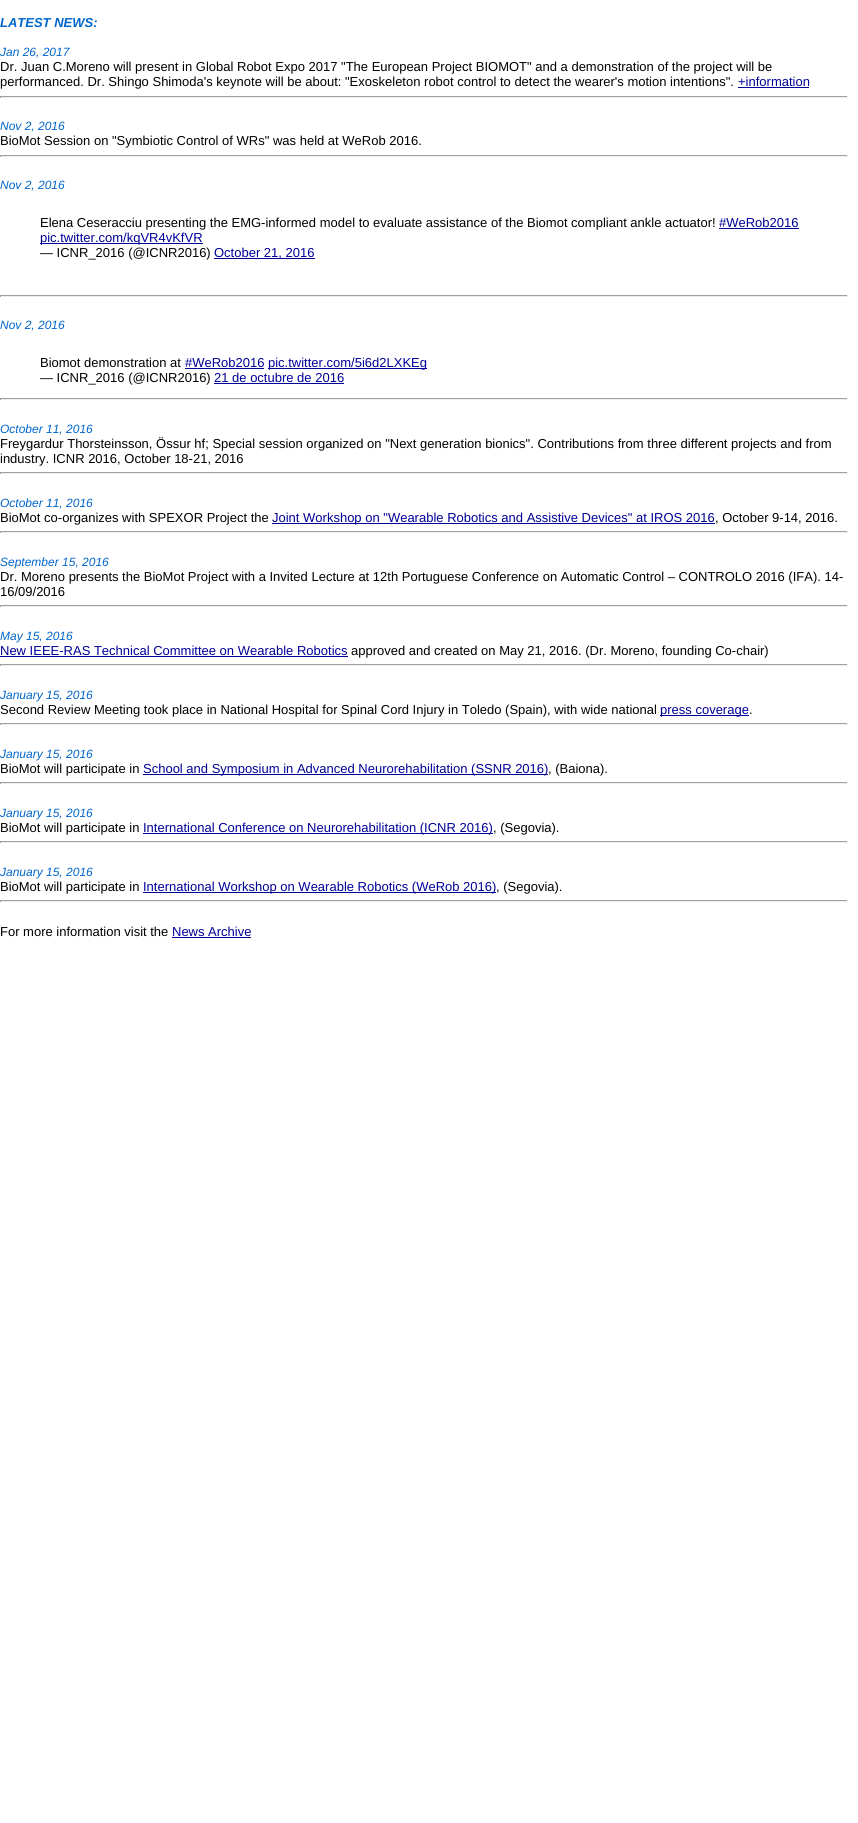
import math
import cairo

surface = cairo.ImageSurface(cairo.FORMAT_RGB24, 858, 1823)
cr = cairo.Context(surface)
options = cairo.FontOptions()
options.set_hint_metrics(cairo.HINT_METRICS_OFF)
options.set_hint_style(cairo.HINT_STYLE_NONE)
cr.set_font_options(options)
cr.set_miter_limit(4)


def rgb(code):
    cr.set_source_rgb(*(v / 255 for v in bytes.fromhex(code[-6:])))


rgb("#ffffff")
cr.paint()
for x, y, w, h, color in [
    (738, 87, 71, 1, "#000099"),
    (0, 96, 848, 1, "#9f9f9f"),
    (847, 96, 1, 2, "#eeeeee"),
    (0, 97, 848, 1, "#eeeeee"),
    (0, 96, 1, 2, "#9f9f9f"),
    (0, 155, 848, 1, "#9f9f9f"),
    (847, 155, 1, 2, "#eeeeee"),
    (0, 156, 848, 1, "#eeeeee"),
    (0, 155, 1, 2, "#9f9f9f"),
    (719, 228, 80, 1, "#000099"),
    (40, 243, 163, 1, "#000099"),
    (214, 258, 101, 1, "#000099"),
    (0, 295, 848, 1, "#9f9f9f"),
    (847, 295, 1, 2, "#eeeeee"),
    (0, 296, 848, 1, "#eeeeee"),
    (0, 295, 1, 2, "#9f9f9f"),
    (185, 368, 79, 1, "#000099"),
    (268, 368, 159, 1, "#000099"),
    (214, 383, 130, 1, "#000099"),
    (0, 398, 848, 1, "#9f9f9f"),
    (847, 398, 1, 2, "#eeeeee"),
    (0, 399, 848, 1, "#eeeeee"),
    (0, 398, 1, 2, "#9f9f9f"),
    (0, 472, 848, 1, "#9f9f9f"),
    (847, 472, 1, 2, "#eeeeee"),
    (0, 473, 848, 1, "#eeeeee"),
    (0, 472, 1, 2, "#9f9f9f"),
    (272, 523, 443, 1, "#000099"),
    (0, 531, 848, 1, "#9f9f9f"),
    (847, 531, 1, 2, "#eeeeee"),
    (0, 532, 848, 1, "#eeeeee"),
    (0, 531, 1, 2, "#9f9f9f"),
    (0, 605, 848, 1, "#9f9f9f"),
    (847, 605, 1, 2, "#eeeeee"),
    (0, 606, 848, 1, "#eeeeee"),
    (0, 605, 1, 2, "#9f9f9f"),
    (0, 656, 348, 1, "#000099"),
    (0, 664, 848, 1, "#9f9f9f"),
    (847, 664, 1, 2, "#eeeeee"),
    (0, 665, 848, 1, "#eeeeee"),
    (0, 664, 1, 2, "#9f9f9f"),
    (660, 715, 89, 1, "#000099"),
    (0, 723, 848, 1, "#9f9f9f"),
    (847, 723, 1, 2, "#eeeeee"),
    (0, 724, 848, 1, "#eeeeee"),
    (0, 723, 1, 2, "#9f9f9f"),
    (143, 774, 405, 1, "#000099"),
    (0, 782, 848, 1, "#9f9f9f"),
    (847, 782, 1, 2, "#eeeeee"),
    (0, 783, 848, 1, "#eeeeee"),
    (0, 782, 1, 2, "#9f9f9f"),
    (143, 833, 350, 1, "#000099"),
    (0, 841, 848, 1, "#9f9f9f"),
    (847, 841, 1, 2, "#eeeeee"),
    (0, 842, 848, 1, "#eeeeee"),
    (0, 841, 1, 2, "#9f9f9f"),
    (143, 892, 353, 1, "#000099"),
    (0, 900, 848, 1, "#9f9f9f"),
    (847, 900, 1, 2, "#eeeeee"),
    (0, 901, 848, 1, "#eeeeee"),
    (0, 900, 1, 2, "#9f9f9f"),
    (172, 937, 79, 1, "#000099"),
]:
    rgb(color)
    cr.rectangle(x, y, w, h)
    cr.fill()
cr.select_font_face("Liberation Sans", cairo.FONT_SLANT_ITALIC, cairo.FONT_WEIGHT_BOLD)
cr.set_font_size(13)
rgb("#0066cc")
cr.move_to(0, 27)
cr.show_text("LATEST NEWS:")
cr.select_font_face("Liberation Sans", cairo.FONT_SLANT_ITALIC)
cr.set_font_size(12)
cr.move_to(0, 56)
cr.show_text("Jan 26, 2017")
cr.select_font_face("Liberation Sans")
cr.set_font_size(13)
rgb("#000000")
cr.move_to(0, 71)
cr.show_text("Dr. Juan C.Moreno will present in Global Robot Expo 2017 \"The European Project BIOMOT\" and a demonstration of the project will be")
cr.move_to(0, 86)
cr.show_text("performanced. Dr. Shingo Shimoda's keynote will be about: \"Exoskeleton robot control to detect the wearer's motion intentions\".")
rgb("#000099")
cr.move_to(738, 86)
cr.show_text("+information")
cr.select_font_face("Liberation Sans", cairo.FONT_SLANT_ITALIC)
cr.set_font_size(12)
rgb("#0066cc")
cr.move_to(0, 130)
cr.show_text("Nov 2, 2016")
cr.select_font_face("Liberation Sans")
cr.set_font_size(13)
rgb("#000000")
cr.move_to(0, 145)
cr.show_text("BioMot Session on \"Symbiotic Control of WRs\" was held at WeRob 2016.")
cr.select_font_face("Liberation Sans", cairo.FONT_SLANT_ITALIC)
cr.set_font_size(12)
rgb("#0066cc")
cr.move_to(0, 189)
cr.show_text("Nov 2, 2016")
cr.select_font_face("Liberation Sans")
cr.set_font_size(13)
rgb("#000000")
cr.move_to(40, 227)
cr.show_text("Elena Ceseracciu presenting the EMG-informed model to evaluate assistance of the Biomot compliant ankle actuator!")
rgb("#000099")
cr.move_to(719, 227)
cr.show_text("#WeRob2016")
cr.move_to(40, 242)
cr.show_text("pic.twitter.com/kqVR4vKfVR")
rgb("#000000")
cr.move_to(40, 257)
cr.show_text("— ICNR_2016 (@ICNR2016)")
rgb("#000099")
cr.move_to(214, 257)
cr.show_text("October 21, 2016")
cr.select_font_face("Liberation Sans", cairo.FONT_SLANT_ITALIC)
cr.set_font_size(12)
rgb("#0066cc")
cr.move_to(0, 329)
cr.show_text("Nov 2, 2016")
cr.select_font_face("Liberation Sans")
cr.set_font_size(13)
rgb("#000000")
cr.move_to(40, 367)
cr.show_text("Biomot demonstration at")
rgb("#000099")
cr.move_to(185, 367)
cr.show_text("#WeRob2016")
cr.move_to(268, 367)
cr.show_text("pic.twitter.com/5i6d2LXKEg")
rgb("#000000")
cr.move_to(40, 382)
cr.show_text("— ICNR_2016 (@ICNR2016)")
rgb("#000099")
cr.move_to(214, 382)
cr.show_text("21 de octubre de 2016")
cr.select_font_face("Liberation Sans", cairo.FONT_SLANT_ITALIC)
cr.set_font_size(12)
rgb("#0066cc")
cr.move_to(0, 433)
cr.show_text("October 11, 2016")
cr.select_font_face("Liberation Sans")
cr.set_font_size(13)
rgb("#000000")
cr.move_to(0, 448)
cr.show_text("Freygardur Thorsteinsson, Össur hf; Special session organized on \"Next generation bionics\". Contributions from three different projects and from")
cr.move_to(0, 463)
cr.show_text("industry. ICNR 2016, October 18-21, 2016")
cr.select_font_face("Liberation Sans", cairo.FONT_SLANT_ITALIC)
cr.set_font_size(12)
rgb("#0066cc")
cr.move_to(0, 507)
cr.show_text("October 11, 2016")
cr.select_font_face("Liberation Sans")
cr.set_font_size(13)
rgb("#000000")
cr.move_to(0, 522)
cr.show_text("BioMot co-organizes with SPEXOR Project the")
rgb("#000099")
cr.move_to(272, 522)
cr.show_text("Joint Workshop on \"Wearable Robotics and Assistive Devices\" at IROS 2016")
rgb("#000000")
cr.move_to(715, 522)
cr.show_text(", October 9-14, 2016.")
cr.select_font_face("Liberation Sans", cairo.FONT_SLANT_ITALIC)
cr.set_font_size(12)
rgb("#0066cc")
cr.move_to(0, 566)
cr.show_text("September 15, 2016")
cr.select_font_face("Liberation Sans")
cr.set_font_size(13)
rgb("#000000")
cr.move_to(0, 581)
cr.show_text("Dr. Moreno presents the BioMot Project with a Invited Lecture at 12th Portuguese Conference on Automatic Control – CONTROLO 2016 (IFA). 14-")
cr.move_to(0, 596)
cr.show_text("16/09/2016")
cr.select_font_face("Liberation Sans", cairo.FONT_SLANT_ITALIC)
cr.set_font_size(12)
rgb("#0066cc")
cr.move_to(0, 640)
cr.show_text("May 15, 2016")
cr.select_font_face("Liberation Sans")
cr.set_font_size(13)
rgb("#000099")
cr.move_to(0, 655)
cr.show_text("New IEEE-RAS Technical Committee on Wearable Robotics")
rgb("#000000")
cr.move_to(351, 655)
cr.show_text("approved and created on May 21, 2016. (Dr. Moreno, founding Co-chair)")
cr.select_font_face("Liberation Sans", cairo.FONT_SLANT_ITALIC)
cr.set_font_size(12)
rgb("#0066cc")
cr.move_to(0, 699)
cr.show_text("January 15, 2016")
cr.select_font_face("Liberation Sans")
cr.set_font_size(13)
rgb("#000000")
cr.move_to(0, 714)
cr.show_text("Second Review Meeting took place in National Hospital for Spinal Cord Injury in Toledo (Spain), with wide national")
rgb("#000099")
cr.move_to(660, 714)
cr.show_text("press coverage")
rgb("#000000")
cr.move_to(749, 714)
cr.show_text(".")
cr.select_font_face("Liberation Sans", cairo.FONT_SLANT_ITALIC)
cr.set_font_size(12)
rgb("#0066cc")
cr.move_to(0, 758)
cr.show_text("January 15, 2016")
cr.select_font_face("Liberation Sans")
cr.set_font_size(13)
rgb("#000000")
cr.move_to(0, 773)
cr.show_text("BioMot will participate in")
rgb("#000099")
cr.move_to(143, 773)
cr.show_text("School and Symposium in Advanced Neurorehabilitation (SSNR 2016)")
rgb("#000000")
cr.move_to(548, 773)
cr.show_text(", (Baiona).")
cr.select_font_face("Liberation Sans", cairo.FONT_SLANT_ITALIC)
cr.set_font_size(12)
rgb("#0066cc")
cr.move_to(0, 817)
cr.show_text("January 15, 2016")
cr.select_font_face("Liberation Sans")
cr.set_font_size(13)
rgb("#000000")
cr.move_to(0, 832)
cr.show_text("BioMot will participate in")
rgb("#000099")
cr.move_to(143, 832)
cr.show_text("International Conference on Neurorehabilitation (ICNR 2016)")
rgb("#000000")
cr.move_to(493, 832)
cr.show_text(", (Segovia).")
cr.select_font_face("Liberation Sans", cairo.FONT_SLANT_ITALIC)
cr.set_font_size(12)
rgb("#0066cc")
cr.move_to(0, 876)
cr.show_text("January 15, 2016")
cr.select_font_face("Liberation Sans")
cr.set_font_size(13)
rgb("#000000")
cr.move_to(0, 891)
cr.show_text("BioMot will participate in")
rgb("#000099")
cr.move_to(143, 891)
cr.show_text("International Workshop on Wearable Robotics (WeRob 2016)")
rgb("#000000")
cr.move_to(496, 891)
cr.show_text(", (Segovia).")
cr.move_to(0, 936)
cr.show_text("For more information visit the")
rgb("#000099")
cr.move_to(172, 936)
cr.show_text("News Archive")
surface.write_to_png("page.png")
